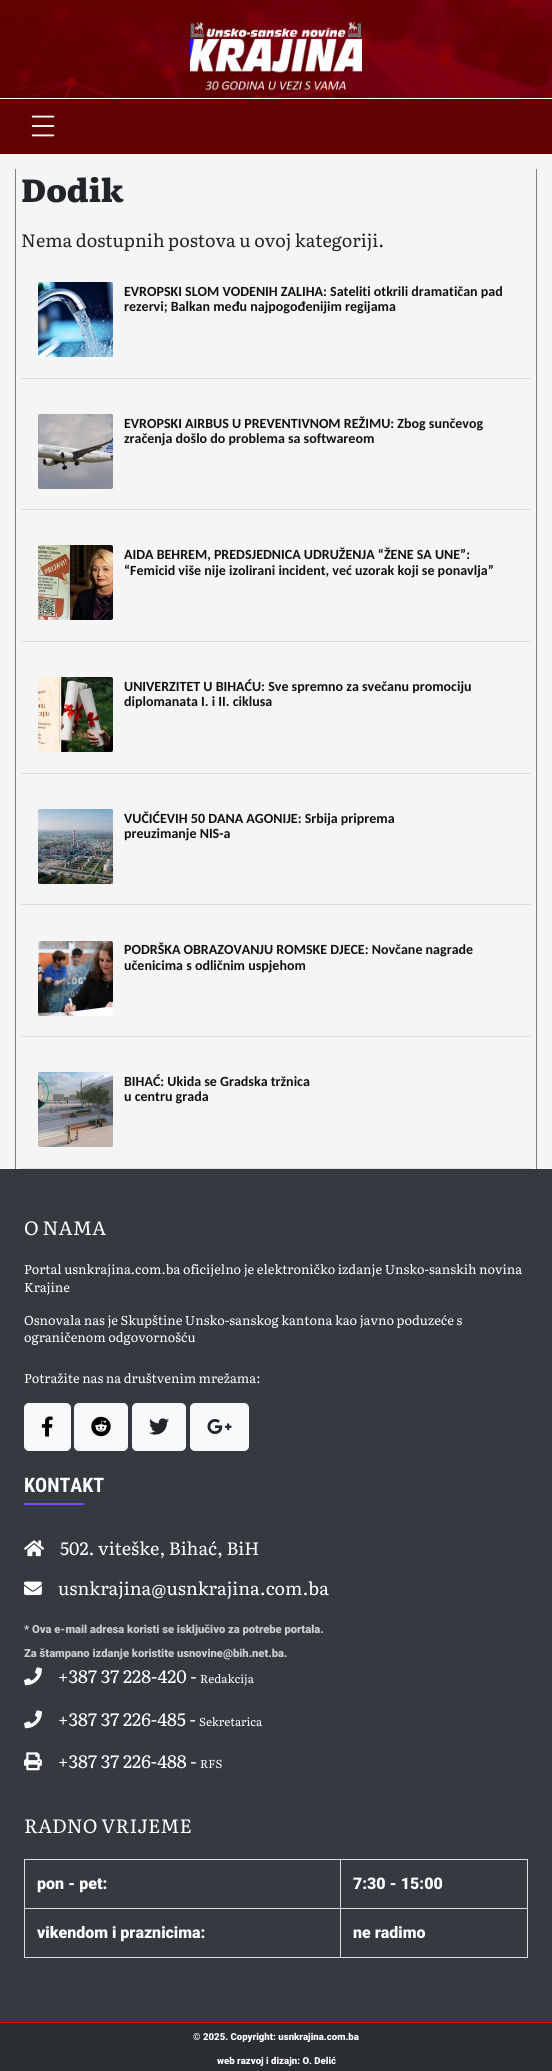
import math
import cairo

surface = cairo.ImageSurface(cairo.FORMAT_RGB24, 552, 2071)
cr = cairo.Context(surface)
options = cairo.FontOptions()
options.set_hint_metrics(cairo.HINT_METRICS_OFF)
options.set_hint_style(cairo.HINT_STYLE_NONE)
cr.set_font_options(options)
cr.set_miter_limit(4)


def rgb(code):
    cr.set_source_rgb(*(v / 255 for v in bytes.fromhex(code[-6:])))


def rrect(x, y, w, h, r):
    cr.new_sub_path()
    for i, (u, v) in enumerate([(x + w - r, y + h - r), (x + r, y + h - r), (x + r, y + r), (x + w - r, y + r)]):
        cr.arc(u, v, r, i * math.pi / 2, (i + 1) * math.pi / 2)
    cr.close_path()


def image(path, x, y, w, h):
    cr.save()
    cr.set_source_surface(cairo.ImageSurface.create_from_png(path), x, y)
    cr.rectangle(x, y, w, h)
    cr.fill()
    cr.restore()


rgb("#ffffff")
cr.paint()
image("img/1.png", 0, 0, 552, 98)
image("img/2.png", 190, 21, 172, 70)
rgb("#630202")
cr.rectangle(0, 99, 552, 54)
cr.fill()
rgb("#5c0000")
cr.rectangle(0, 153, 552, 1)
cr.fill()
image("img/3.png", 31, 115, 24, 22)
for x, y, w, h, color in [
    (0, 154, 552, 1015, "#f5f5f5"),
    (536, 169, 1, 1000, "#808080"),
    (15, 169, 1, 1000, "#808080"),
    (21, 378, 510, 1, "#dddddd"),
]:
    rgb(color)
    cr.rectangle(x, y, w, h)
    cr.fill()
image("img/4.png", 38, 282, 75, 75)
cr.rectangle(21, 509, 510, 1)
cr.fill()
image("img/5.png", 38, 414, 75, 75)
cr.rectangle(21, 641, 510, 1)
cr.fill()
image("img/6.png", 38, 545, 75, 75)
cr.rectangle(21, 773, 510, 1)
cr.fill()
image("img/7.png", 38, 677, 75, 75)
cr.rectangle(21, 904, 510, 1)
cr.fill()
image("img/8.png", 38, 809, 75, 75)
cr.rectangle(21, 1036, 510, 1)
cr.fill()
image("img/9.png", 38, 941, 75, 75)
cr.rectangle(21, 1168, 510, 1)
cr.fill()
image("img/10.png", 38, 1072, 75, 75)
rgb("#343a40")
cr.rectangle(0, 1169, 552, 853)
cr.fill()
rgb("#f8f9fa")
rrect(24.5, 1403.5, 46, 47, 4.5)
cr.fill_preserve()
cr.set_line_width(1)
cr.stroke()
image("img/11.png", 41, 1416, 12, 21)
rrect(74.5, 1403.5, 53, 47, 4.5)
cr.fill_preserve()
cr.stroke()
image("img/12.png", 91, 1416, 20, 21)
rrect(132.5, 1403.5, 53, 47, 4.5)
cr.fill_preserve()
cr.stroke()
image("img/13.png", 149, 1418, 20, 17)
rrect(190.5, 1403.5, 58, 47, 4.5)
cr.fill_preserve()
cr.stroke()
image("img/14.png", 207, 1419, 25, 15)
rgb("#7c4dff")
cr.rectangle(24, 1503, 60, 2)
cr.fill()
image("img/15.png", 24, 1540, 21, 17)
image("img/16.png", 24, 1581, 18, 14)
image("img/17.png", 24, 1667, 18, 19)
image("img/17.png", 24, 1710, 18, 19)
image("img/18.png", 24, 1752, 18, 19)
for x, y, w, h, color in [
    (24, 1859, 504, 1, "#dee2e6"),
    (527, 1908, 1, 50, "#dddddd"),
    (527, 1859, 1, 50, "#dddddd"),
    (340, 1957, 188, 1, "#dddddd"),
    (340, 1908, 1, 50, "#dddddd"),
    (340, 1908, 188, 1, "#dddddd"),
    (340, 1859, 1, 50, "#dddddd"),
    (24, 1957, 317, 1, "#dddddd"),
    (24, 1908, 1, 50, "#dddddd"),
    (24, 1908, 317, 1, "#dddddd"),
    (24, 1859, 1, 50, "#dddddd"),
    (0, 2023, 552, 48, "#2a2e33"),
    (0, 2022, 552, 1, "#ff0000"),
]:
    rgb(color)
    cr.rectangle(x, y, w, h)
    cr.fill()
cr.select_font_face("Literata ExtraBold")
cr.set_font_size(32)
rgb("#212529")
cr.move_to(21, 202)
cr.show_text("Dodik")
cr.select_font_face("Literata")
cr.set_font_size(17.9)
cr.move_to(21, 247)
cr.show_text("Nema dostupnih postova u ovoj kategoriji.")
cr.select_font_face("Carlito", cairo.FONT_SLANT_NORMAL, cairo.FONT_WEIGHT_BOLD)
cr.set_font_size(14)
rgb("#111111")
for x, y, s in [
    (124, 296, "EVROPSKI SLOM VODENIH ZALIHA: Sateliti otkrili dramatičan pad"),
    (124, 311, "rezervi; Balkan među najpogođenijim regijama"),
    (124, 428, "EVROPSKI AIRBUS U PREVENTIVNOM REŽIMU: Zbog sunčevog"),
    (124, 443, "zračenja došlo do problema sa softwareom"),
    (124, 559, "AIDA BEHREM, PREDSJEDNICA UDRUŽENJA “ŽENE SA UNE”:"),
    (124, 575, "“Femicid više nije izolirani incident, već uzorak koji se ponavlja”"),
    (124, 691, "UNIVERZITET U BIHAĆU: Sve spremno za svečanu promociju"),
    (124, 706, "diplomanata I. i II. ciklusa"),
    (124, 823, "VUČIĆEVIH 50 DANA AGONIJE: Srbija priprema"),
    (124, 838, "preuzimanje NIS-a"),
    (124, 954, "PODRŠKA OBRAZOVANJU ROMSKE DJECE: Novčane nagrade"),
    (124, 970, "učenicima s odličnim uspjehom"),
    (124, 1086, "BIHAĆ: Ukida se Gradska tržnica"),
    (124, 1101, "u centru grada"),
]:
    cr.move_to(x, y)
    cr.show_text(s)
cr.select_font_face("Literata")
cr.set_font_size(19.25)
rgb("#ffffff")
cr.move_to(24, 1235)
cr.show_text("O NAMA")
cr.set_font_size(12.8)
for x, y, s in [
    (24, 1274, "Portal usnkrajina.com.ba oficijelno je elektroničko izdanje Unsko-sanskih novina"),
    (24, 1292, "Krajine"),
    (24, 1325, "Osnovala nas je Skupštine Unsko-sanskog kantona kao javno poduzeće s"),
    (24, 1342, "ograničenom odgovornošću"),
    (24, 1383, "Potražite nas na društvenim mrežama:"),
]:
    cr.move_to(x, y)
    cr.show_text(s)
cr.select_font_face("Roboto Condensed", cairo.FONT_SLANT_NORMAL, cairo.FONT_WEIGHT_BOLD)
cr.set_font_size(20)
cr.move_to(24, 1492)
cr.show_text("KONTAKT")
cr.select_font_face("Literata")
cr.set_font_size(17.9)
cr.move_to(60, 1555)
cr.show_text("502. viteške, Bihać, BiH")
cr.move_to(58, 1595)
cr.show_text("usnkrajina@usnkrajina.com.ba")
cr.select_font_face("Roboto Black")
cr.set_font_size(11.2)
rgb("#cccccc")
cr.move_to(24, 1633)
cr.show_text("* Ova e-mail adresa koristi se isključivo za potrebe portala.")
cr.move_to(24, 1657)
cr.show_text("Za štampano izdanje koristite usnovine@bih.net.ba.")
cr.select_font_face("Literata")
cr.set_font_size(17.9)
rgb("#ffffff")
cr.move_to(58, 1683)
cr.show_text("+387 37 228-420 -")
cr.set_font_size(11.5)
cr.move_to(200, 1683)
cr.show_text("Redakcija")
cr.set_font_size(17.9)
cr.move_to(58, 1726)
cr.show_text("+387 37 226-485 -")
cr.set_font_size(11.5)
cr.move_to(199, 1726)
cr.show_text("Sekretarica")
cr.set_font_size(17.9)
cr.move_to(58, 1768)
cr.show_text("+387 37 226-488 -")
cr.set_font_size(11.5)
cr.move_to(200, 1768)
cr.show_text("RFS")
cr.set_font_size(19.25)
cr.move_to(24, 1833)
cr.show_text("RADNO VRIJEME")
cr.select_font_face("Roboto Black")
cr.set_font_size(16)
for x, y, s in [
    (37, 1889, "pon - pet:"),
    (353, 1889, "7:30 - 15:00"),
    (37, 1938, "vikendom i praznicima:"),
    (353, 1938, "ne radimo"),
]:
    cr.move_to(x, y)
    cr.show_text(s)
cr.set_font_size(9.6)
cr.move_to(193, 2040)
cr.show_text("© 2025. Copyright: usnkrajina.com.ba")
cr.move_to(217, 2064)
cr.show_text("web razvoj i dizajn: O. Delić")
surface.write_to_png("page.png")
